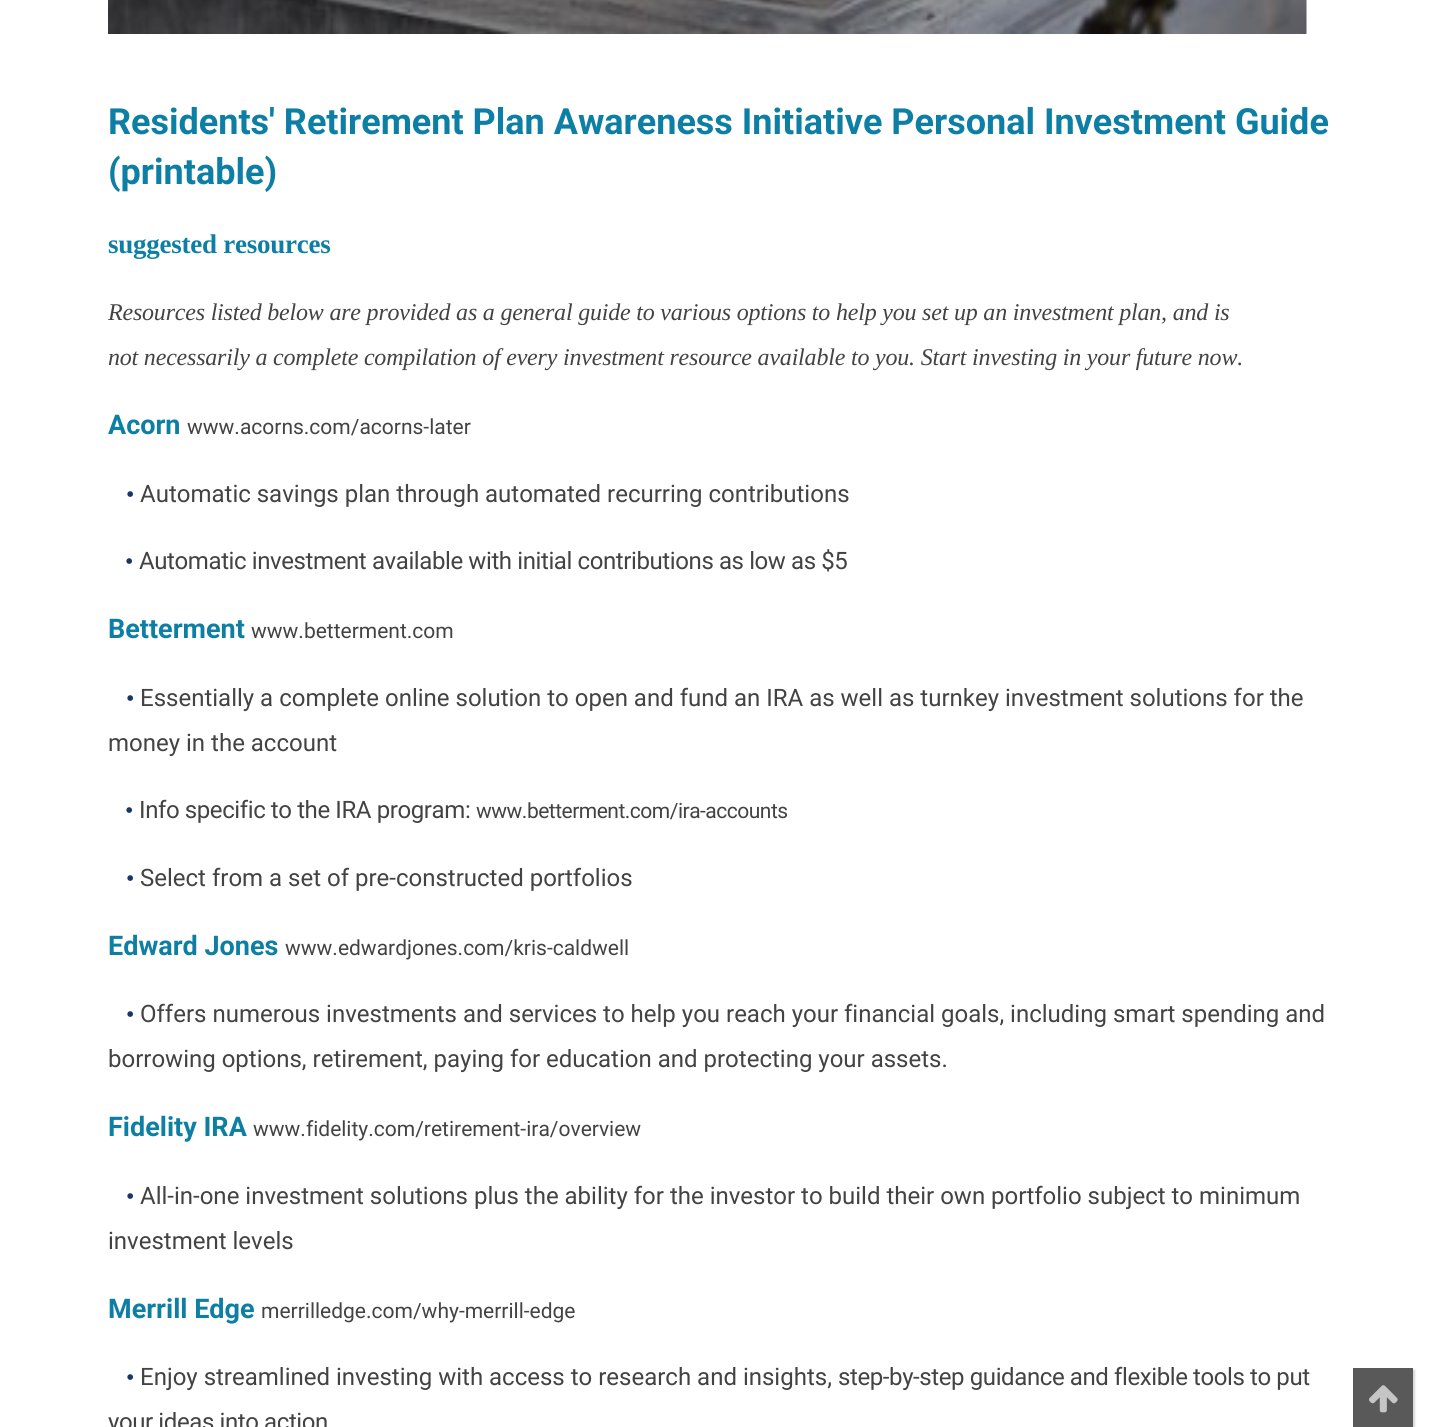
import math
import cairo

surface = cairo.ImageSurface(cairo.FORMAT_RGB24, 1443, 1427)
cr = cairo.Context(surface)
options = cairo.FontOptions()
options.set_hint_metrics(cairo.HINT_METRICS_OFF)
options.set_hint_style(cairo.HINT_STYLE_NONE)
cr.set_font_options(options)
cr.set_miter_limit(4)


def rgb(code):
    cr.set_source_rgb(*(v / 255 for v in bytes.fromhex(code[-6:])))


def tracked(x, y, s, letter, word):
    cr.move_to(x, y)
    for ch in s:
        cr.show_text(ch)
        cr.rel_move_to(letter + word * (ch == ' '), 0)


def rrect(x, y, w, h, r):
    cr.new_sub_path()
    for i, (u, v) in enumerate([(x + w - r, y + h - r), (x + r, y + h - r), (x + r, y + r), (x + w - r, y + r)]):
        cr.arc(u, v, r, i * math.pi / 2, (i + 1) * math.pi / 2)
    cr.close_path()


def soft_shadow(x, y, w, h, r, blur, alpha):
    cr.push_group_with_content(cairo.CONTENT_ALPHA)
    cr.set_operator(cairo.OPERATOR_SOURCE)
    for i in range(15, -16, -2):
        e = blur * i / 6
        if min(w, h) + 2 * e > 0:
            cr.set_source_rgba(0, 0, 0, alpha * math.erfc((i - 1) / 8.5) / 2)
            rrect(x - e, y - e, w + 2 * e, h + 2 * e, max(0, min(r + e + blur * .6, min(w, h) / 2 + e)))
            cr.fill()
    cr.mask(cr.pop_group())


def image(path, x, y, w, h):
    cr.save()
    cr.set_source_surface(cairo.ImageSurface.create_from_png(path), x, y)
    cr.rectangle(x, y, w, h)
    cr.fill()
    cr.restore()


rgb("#ffffff")
cr.paint()
image("img/1.png", 108, 0, 1199, 34)
rgb("#595959")
soft_shadow(1355, 1370, 60, 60, 0, 1, 0.25)
rgb("#595959")
cr.rectangle(1353, 1368, 60, 59)
cr.fill()
image("img/2.png", 1369, 1385, 29, 28)
cr.select_font_face("Roboto", cairo.FONT_SLANT_NORMAL, cairo.FONT_WEIGHT_BOLD)
cr.set_font_size(36)
rgb("#0d7fa5")
cr.move_to(108, 134)
cr.show_text("Residents' Retirement Plan Awareness Initiative Personal Investment Guide")
cr.move_to(108, 184)
cr.show_text("(printable)")
cr.select_font_face("Liberation Serif", cairo.FONT_SLANT_NORMAL, cairo.FONT_WEIGHT_BOLD)
cr.set_font_size(27)
tracked(108, 253, "suggested resources", -0.25, 0)
cr.select_font_face("Liberation Serif", cairo.FONT_SLANT_ITALIC)
cr.set_font_size(24)
rgb("#434343")
tracked(108, 320, "Resources listed below are provided as a general guide to various options to help you set up an investment plan, and is", -0.2, 0)
tracked(108, 365, "not necessarily a complete compilation of every investment resource available to you. Start investing in your future now.", -0.2, 0)
cr.select_font_face("Roboto", cairo.FONT_SLANT_NORMAL, cairo.FONT_WEIGHT_BOLD)
cr.set_font_size(27)
rgb("#0d7fa5")
cr.move_to(108, 434)
cr.show_text("Acorn")
cr.select_font_face("Roboto")
cr.set_font_size(21)
rgb("#434343")
cr.move_to(187, 434)
cr.show_text("www.acorns.com/acorns-later")
cr.select_font_face("Liberation Serif")
cr.set_font_size(24)
rgb("#1a3667")
cr.move_to(126, 502)
cr.show_text("•")
cr.select_font_face("Roboto")
rgb("#434343")
cr.move_to(140, 502)
cr.show_text("Automatic savings plan through automated recurring contributions")
cr.select_font_face("Liberation Serif")
rgb("#1a3667")
cr.move_to(125, 569)
cr.show_text("•")
cr.select_font_face("Roboto")
rgb("#434343")
tracked(139, 569, "Automatic investment available with initial contributions as low as $5", -0.4, 0)
cr.select_font_face("Roboto", cairo.FONT_SLANT_NORMAL, cairo.FONT_WEIGHT_BOLD)
cr.set_font_size(27)
rgb("#0d7fa5")
cr.move_to(108, 638)
cr.show_text("Betterment")
cr.select_font_face("Roboto")
cr.set_font_size(21)
rgb("#434343")
cr.move_to(251, 638)
cr.show_text("www.betterment.com")
cr.select_font_face("Liberation Serif")
cr.set_font_size(24)
rgb("#1a3667")
cr.move_to(126, 706)
cr.show_text("•")
cr.select_font_face("Roboto")
rgb("#434343")
cr.move_to(140, 706)
cr.show_text("Essentially a complete online solution to open and fund an IRA as well as turnkey investment solutions for the")
cr.move_to(108, 751)
cr.show_text("money in the account")
cr.select_font_face("Liberation Serif")
rgb("#1a3667")
cr.move_to(125, 818)
cr.show_text("•")
cr.select_font_face("Roboto")
rgb("#434343")
tracked(139, 818, "Info specific to the IRA program:", -0.4, 0)
cr.set_font_size(21)
tracked(476, 818, "www.betterment.com/ira-accounts", -0.5, 0)
cr.select_font_face("Liberation Serif")
cr.set_font_size(24)
rgb("#1a3667")
cr.move_to(126, 886)
cr.show_text("•")
cr.select_font_face("Roboto")
rgb("#434343")
cr.move_to(140, 886)
cr.show_text("Select from a set of pre-constructed portfolios")
cr.select_font_face("Roboto", cairo.FONT_SLANT_NORMAL, cairo.FONT_WEIGHT_BOLD)
cr.set_font_size(27)
rgb("#0d7fa5")
cr.move_to(108, 955)
cr.show_text("Edward Jones")
cr.select_font_face("Roboto")
cr.set_font_size(21)
rgb("#434343")
cr.move_to(285, 955)
cr.show_text("www.edwardjones.com/kris-caldwell")
cr.select_font_face("Liberation Serif")
cr.set_font_size(24)
rgb("#1a3667")
cr.move_to(126, 1022)
cr.show_text("•")
cr.select_font_face("Roboto")
rgb("#434343")
cr.move_to(140, 1022)
cr.show_text("Offers numerous investments and services to help you reach your financial goals, including smart spending and")
cr.move_to(108, 1067)
cr.show_text("borrowing options, retirement, paying for education and protecting your assets.")
cr.select_font_face("Roboto", cairo.FONT_SLANT_NORMAL, cairo.FONT_WEIGHT_BOLD)
cr.set_font_size(27)
rgb("#0d7fa5")
cr.move_to(108, 1136)
cr.show_text("Fidelity IRA")
cr.select_font_face("Roboto")
cr.set_font_size(21)
rgb("#434343")
cr.move_to(253, 1136)
cr.show_text("www.fidelity.com/retirement-ira/overview")
cr.select_font_face("Liberation Serif")
cr.set_font_size(24)
rgb("#1a3667")
cr.move_to(126, 1204)
cr.show_text("•")
cr.select_font_face("Roboto")
rgb("#434343")
cr.move_to(140, 1204)
cr.show_text("All-in-one investment solutions plus the ability for the investor to build their own portfolio subject to minimum")
cr.move_to(108, 1249)
cr.show_text("investment levels")
cr.select_font_face("Roboto", cairo.FONT_SLANT_NORMAL, cairo.FONT_WEIGHT_BOLD)
cr.set_font_size(27)
rgb("#0d7fa5")
cr.move_to(108, 1318)
cr.show_text("Merrill Edge")
cr.select_font_face("Roboto")
cr.set_font_size(21)
rgb("#434343")
cr.move_to(261, 1318)
cr.show_text("merrilledge.com/why-merrill-edge")
cr.select_font_face("Liberation Serif")
cr.set_font_size(24)
rgb("#1a3667")
cr.move_to(126, 1385)
cr.show_text("•")
cr.select_font_face("Roboto")
rgb("#434343")
cr.move_to(140, 1385)
cr.show_text("Enjoy streamlined investing with access to research and insights,")
tracked(838, 1385, "step-by-step guidance and flexible tools to put", -0.4, 0)
tracked(108, 1430, "your ideas into action", -0.4, 0)
surface.write_to_png("page.png")
